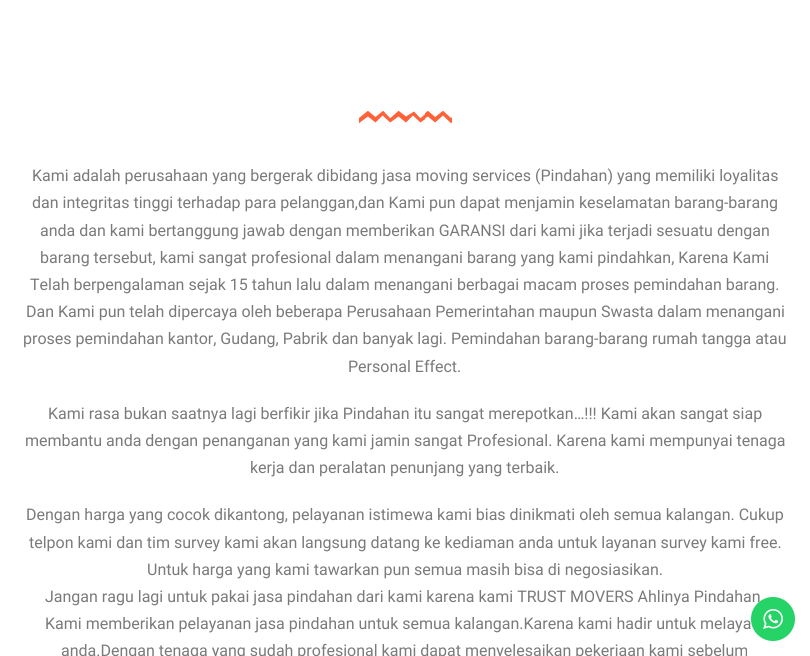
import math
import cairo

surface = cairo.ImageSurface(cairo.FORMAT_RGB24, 810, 656)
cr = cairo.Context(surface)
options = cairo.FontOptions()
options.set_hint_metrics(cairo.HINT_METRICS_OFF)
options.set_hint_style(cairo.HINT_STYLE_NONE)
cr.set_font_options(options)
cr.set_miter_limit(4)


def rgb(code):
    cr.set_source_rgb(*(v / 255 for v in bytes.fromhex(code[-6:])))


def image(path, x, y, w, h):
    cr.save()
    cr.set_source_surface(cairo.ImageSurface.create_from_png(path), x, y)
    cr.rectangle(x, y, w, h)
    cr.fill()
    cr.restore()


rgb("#ffffff")
cr.paint()
image("img/1.png", 359, 110, 93, 14)
cr.select_font_face("Roboto")
cr.set_font_size(16)
rgb("#7a7a7a")
for x, y, s in [
    (32, 181, "Kami adalah perusahaan yang bergerak dibidang jasa moving services (Pindahan) yang memiliki loyalitas"),
    (32, 208, "dan integritas tinggi terhadap para pelanggan,dan Kami pun dapat menjamin keselamatan barang-barang"),
    (40, 236, "anda dan kami bertanggung jawab dengan memberikan GARANSI dari kami jika terjadi sesuatu dengan"),
    (40, 263, "barang tersebut, kami sangat profesional dalam menangani barang yang kami pindahkan, Karena Kami"),
    (30, 290, "Telah berpengalaman sejak 15 tahun lalu dalam menangani berbagai macam proses pemindahan barang."),
    (26, 317, "Dan Kami pun telah dipercaya oleh beberapa Perusahaan Pemerintahan maupun Swasta dalam menangani"),
    (23, 344, "proses pemindahan kantor, Gudang, Pabrik dan banyak lagi. Pemindahan barang-barang rumah tangga atau"),
    (348, 372, "Personal Effect."),
    (48, 419, "Kami rasa bukan saatnya lagi berfikir jika Pindahan itu sangat merepotkan…!!! Kami akan sangat siap"),
    (25, 446, "membantu anda dengan penanganan yang kami jamin sangat Profesional. Karena kami mempunyai tenaga"),
    (250, 473, "kerja dan peralatan penunjang yang terbaik."),
    (26, 520, "Dengan harga yang cocok dikantong, pelayanan istimewa kami bias dinikmati oleh semua kalangan. Cukup"),
    (29, 548, "telpon kami dan tim survey kami akan langsung datang ke kediaman anda untuk layanan survey kami free."),
    (147, 575, "Untuk harga yang kami tawarkan pun semua masih bisa di negosiasikan."),
    (45, 602, "Jangan ragu lagi untuk pakai jasa pindahan dari kami karena kami TRUST MOVERS Ahlinya Pindahan"),
    (45, 629, "Kami memberikan pelayanan jasa pindahan untuk semua kalangan.Karena kami hadir untuk melaya"),
    (61, 656, "anda.Dengan tenaga yang sudah profesional kami dapat menyelesaikan pekerjaan kami sebelum"),
]:
    cr.move_to(x, y)
    cr.show_text(s)
rgb("#25d366")
cr.new_path()
cr.arc(773, 619, 22, 0, 2 * math.pi)
cr.fill()
image("img/2.png", 763, 609, 20, 20)
surface.write_to_png("page.png")
